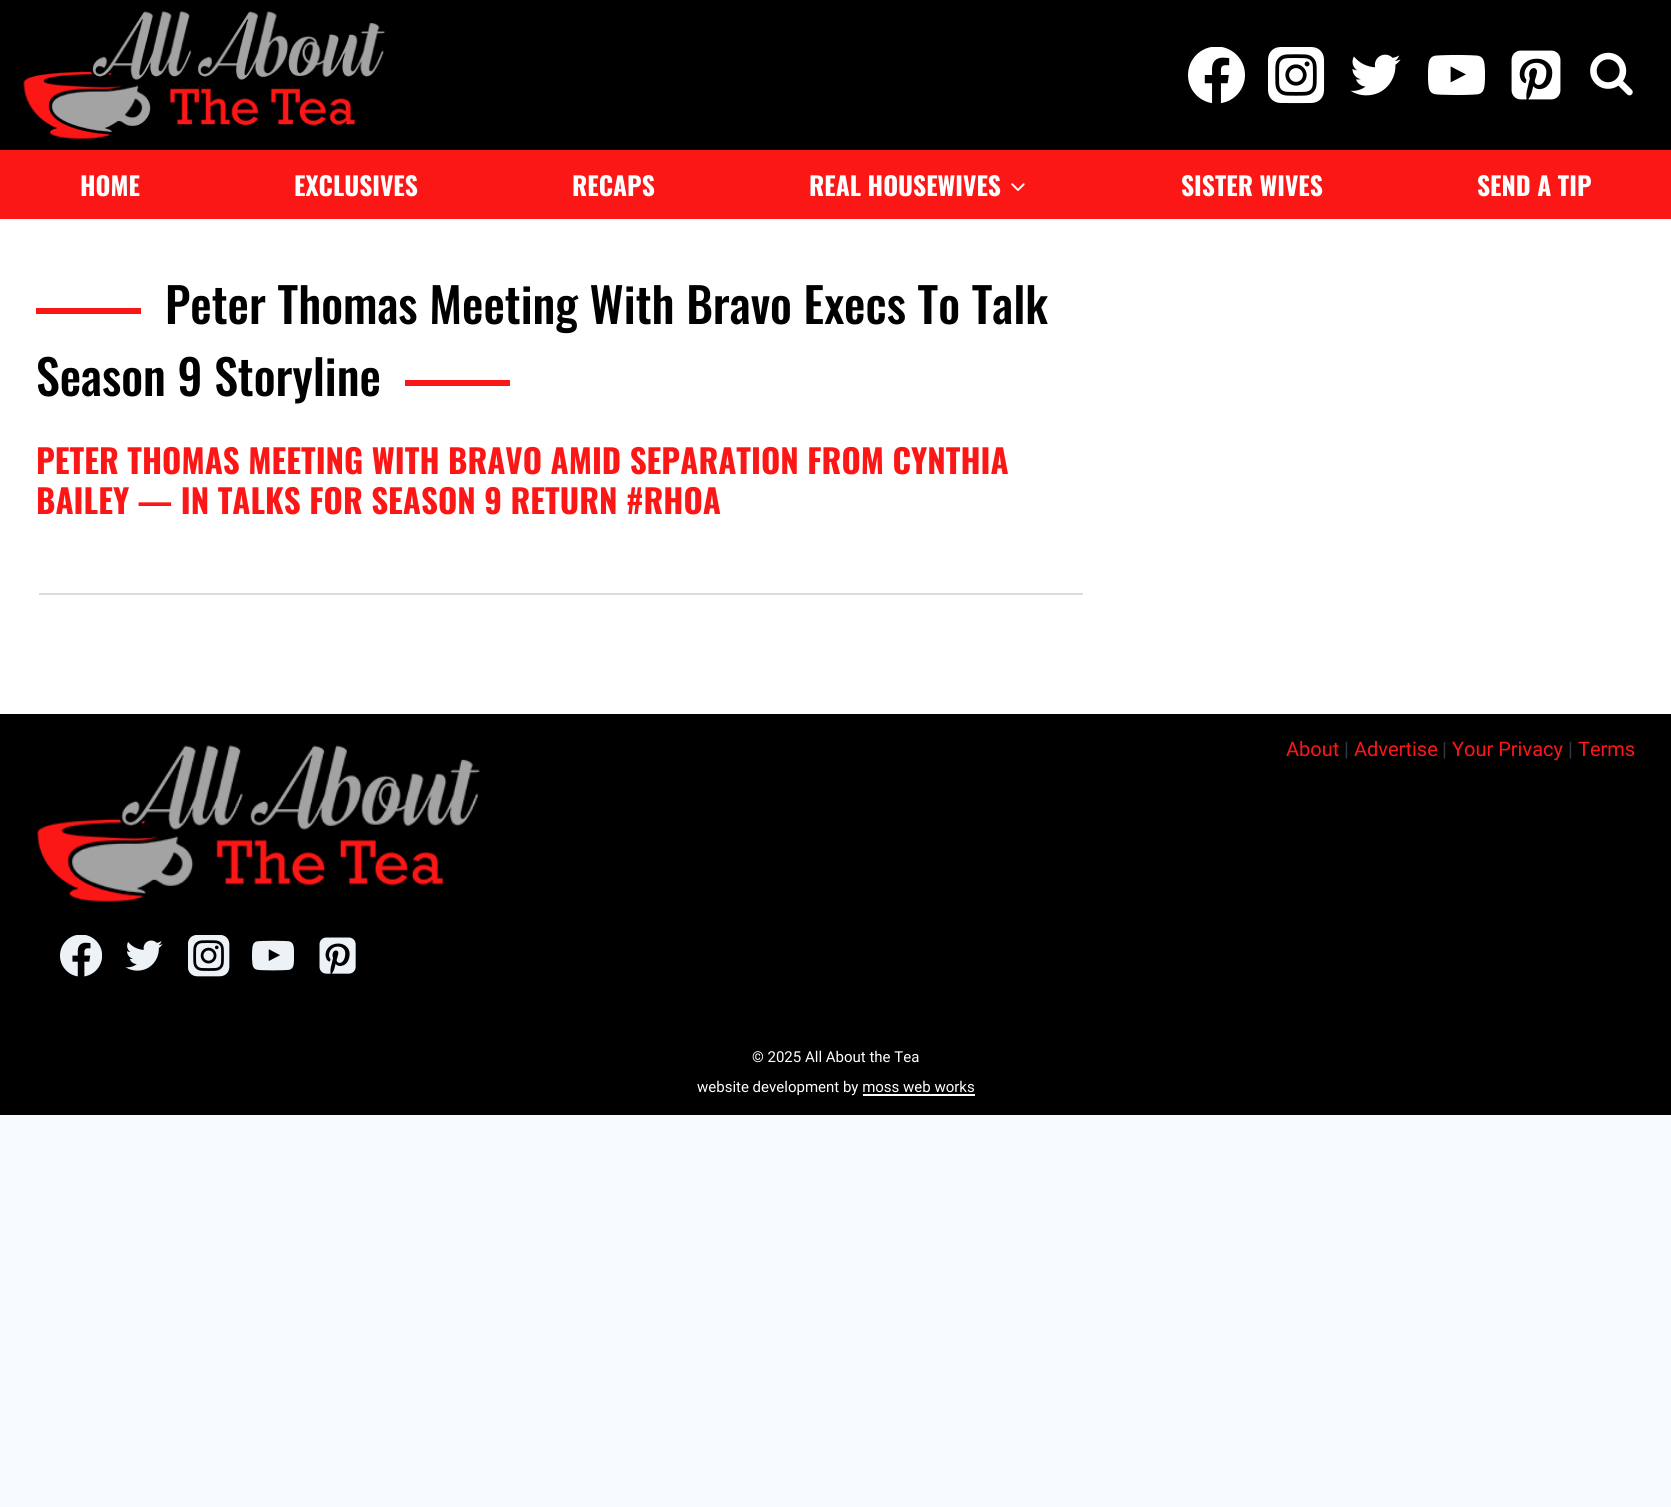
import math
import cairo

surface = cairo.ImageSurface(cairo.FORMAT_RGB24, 1671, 1507)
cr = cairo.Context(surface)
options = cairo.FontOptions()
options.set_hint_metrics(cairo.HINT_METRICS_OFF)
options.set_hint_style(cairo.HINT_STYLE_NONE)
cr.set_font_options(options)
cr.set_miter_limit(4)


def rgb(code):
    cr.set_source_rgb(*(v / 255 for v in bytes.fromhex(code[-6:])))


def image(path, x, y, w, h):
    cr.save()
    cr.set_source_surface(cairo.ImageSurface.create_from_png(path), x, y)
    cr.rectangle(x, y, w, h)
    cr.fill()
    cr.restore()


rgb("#f7fafc")
cr.paint()
rgb("#ffffff")
cr.rectangle(0, 219, 1671, 495)
cr.fill()
rgb("#000000")
cr.rectangle(0, 0, 1671, 150)
cr.fill()
image("img/1.png", 23, 11, 363, 128)
image("img/2.png", 1188, 47, 57, 57)
image("img/3.png", 1268, 47, 57, 57)
image("img/4.png", 1350, 54, 51, 42)
image("img/5.png", 1428, 54, 57, 42)
image("img/6.png", 1511, 50, 50, 50)
image("img/7.png", 1590, 52, 43, 44)
rgb("#fc1717")
cr.rectangle(0, 150, 1671, 69)
cr.fill()
image("img/8.png", 1011, 183, 14, 8)
for x, y, w, h, color in [
    (36, 308, 105, 6, "#fc1717"),
    (405, 380, 105, 6, "#fc1717"),
    (39, 593, 1044, 2, "#dddddd"),
    (0, 714, 1671, 401, "#000000"),
]:
    rgb(color)
    cr.rectangle(x, y, w, h)
    cr.fill()
image("img/9.png", 37, 745, 444, 157)
image("img/10.png", 60, 935, 42, 42)
image("img/11.png", 125, 940, 38, 31)
image("img/12.png", 188, 935, 42, 42)
image("img/13.png", 252, 940, 42, 31)
image("img/14.png", 319, 937, 37, 37)
rgb("#ffffff")
cr.rectangle(863, 1094, 112, 2)
cr.fill()
cr.select_font_face("Oswald", cairo.FONT_SLANT_NORMAL, cairo.FONT_WEIGHT_BOLD)
cr.set_font_size(25.5)
for x, y, s in [
    (80, 196, "HOME"),
    (294, 196, "EXCLUSIVES"),
    (572, 196, "RECAPS"),
    (809, 196, "REAL HOUSEWIVES"),
    (1181, 196, "SISTER WIVES"),
    (1477, 196, "SEND A TIP"),
]:
    cr.move_to(x, y)
    cr.show_text(s)
cr.select_font_face("Oswald Medium")
cr.set_font_size(48)
rgb("#000000")
cr.move_to(165, 324)
cr.show_text("Peter Thomas Meeting With Bravo Execs To Talk")
cr.move_to(36, 396)
cr.show_text("Season 9 Storyline")
cr.select_font_face("Oswald", cairo.FONT_SLANT_NORMAL, cairo.FONT_WEIGHT_BOLD)
cr.set_font_size(33)
rgb("#fc1717")
cr.move_to(36, 474)
cr.show_text("PETER THOMAS MEETING WITH BRAVO AMID SEPARATION FROM CYNTHIA")
cr.move_to(36, 514)
cr.show_text("BAILEY — IN TALKS FOR SEASON 9 RETURN #RHOA")
cr.select_font_face("Roboto")
cr.set_font_size(20)
cr.move_to(1286, 756)
cr.show_text("About")
rgb("#2d3748")
cr.move_to(1344, 756)
cr.show_text("|")
rgb("#fc1717")
cr.move_to(1354, 756)
cr.show_text("Advertise")
rgb("#2d3748")
cr.move_to(1442, 756)
cr.show_text("|")
rgb("#fc1717")
cr.move_to(1452, 756)
cr.show_text("Your Privacy")
rgb("#2d3748")
cr.move_to(1568, 756)
cr.show_text("|")
rgb("#fc1717")
cr.move_to(1578, 756)
cr.show_text("Terms")
cr.set_font_size(15)
rgb("#ffffff")
cr.move_to(752, 1062)
cr.show_text("© 2025 All About the Tea")
cr.move_to(697, 1092)
cr.show_text("website development by moss web works")
surface.write_to_png("page.png")
